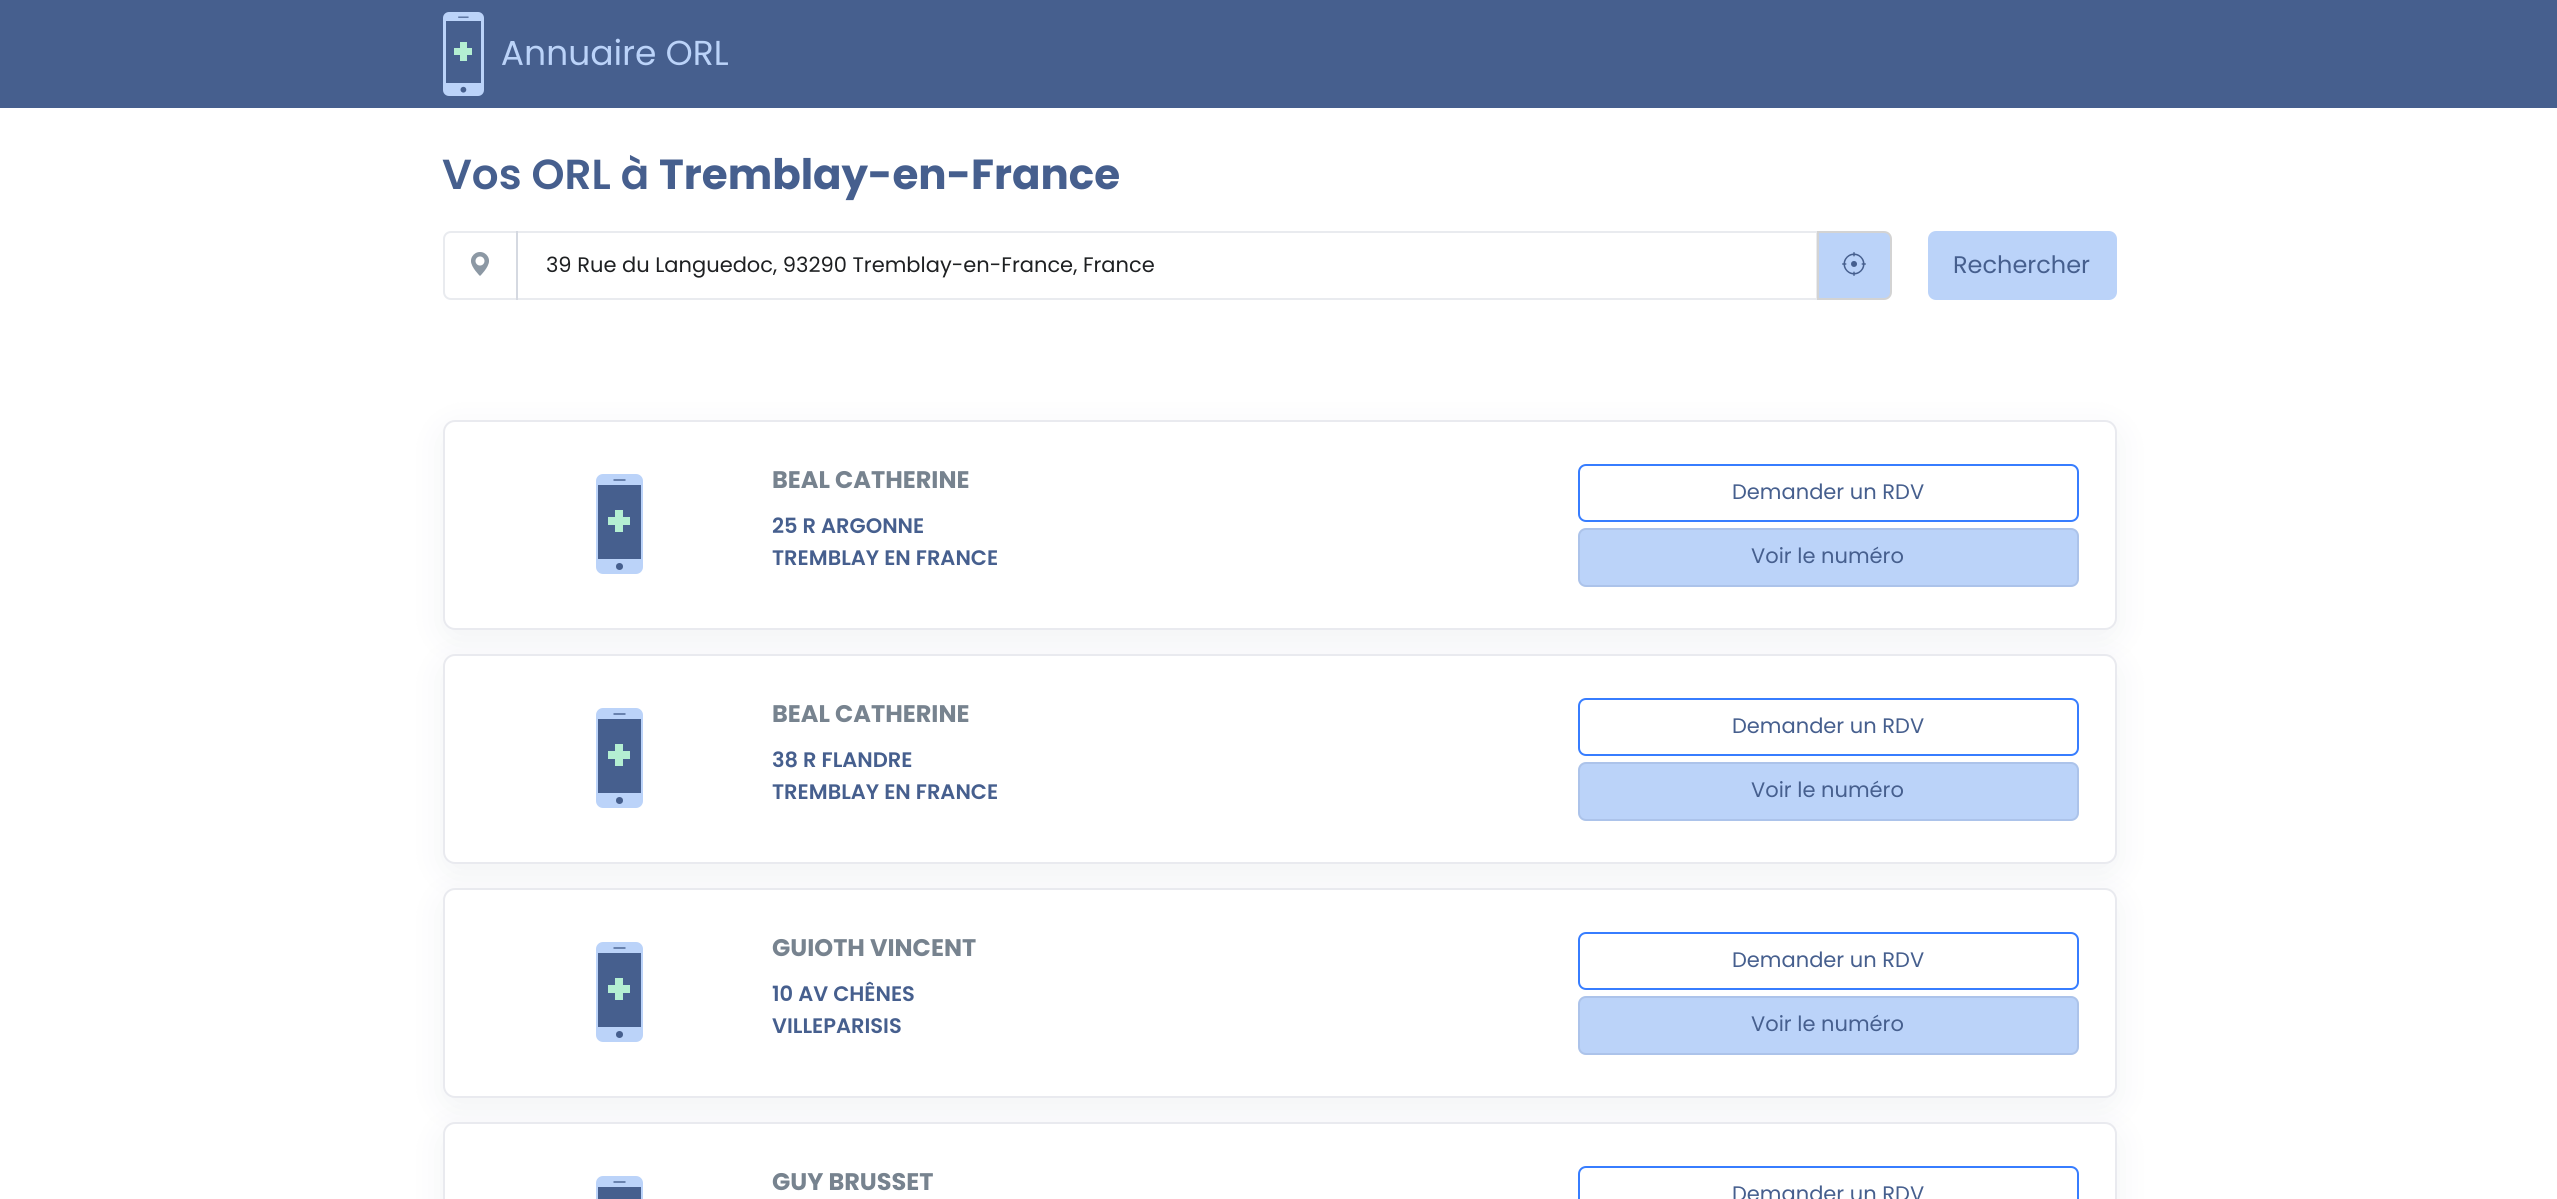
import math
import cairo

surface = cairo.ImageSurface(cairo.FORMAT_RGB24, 2557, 1199)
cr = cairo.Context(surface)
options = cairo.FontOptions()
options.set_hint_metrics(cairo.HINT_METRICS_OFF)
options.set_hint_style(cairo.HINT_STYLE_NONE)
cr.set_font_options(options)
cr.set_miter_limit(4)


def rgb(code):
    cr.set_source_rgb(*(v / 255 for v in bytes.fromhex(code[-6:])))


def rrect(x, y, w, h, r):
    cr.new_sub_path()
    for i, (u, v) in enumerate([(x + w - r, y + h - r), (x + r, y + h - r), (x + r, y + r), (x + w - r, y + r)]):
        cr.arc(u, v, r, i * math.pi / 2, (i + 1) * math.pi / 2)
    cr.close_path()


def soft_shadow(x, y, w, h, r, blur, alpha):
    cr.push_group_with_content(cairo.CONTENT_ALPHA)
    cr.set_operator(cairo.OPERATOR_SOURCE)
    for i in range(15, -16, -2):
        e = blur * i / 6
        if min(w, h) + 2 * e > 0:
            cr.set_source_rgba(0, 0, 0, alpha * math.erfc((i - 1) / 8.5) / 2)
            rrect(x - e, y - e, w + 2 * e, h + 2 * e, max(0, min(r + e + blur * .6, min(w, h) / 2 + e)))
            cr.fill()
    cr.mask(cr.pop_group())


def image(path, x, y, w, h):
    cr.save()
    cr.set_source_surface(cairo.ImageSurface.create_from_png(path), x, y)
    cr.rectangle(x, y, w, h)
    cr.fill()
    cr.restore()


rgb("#ffffff")
cr.paint()
rgb("#465f8e")
cr.rectangle(0, 0, 2557, 108)
cr.fill()
image("img/1.png", 443, 12, 285, 84)
cr.new_path()
cr.move_to(451, 232)
cr.line_to(517, 232)
cr.line_to(517, 299)
cr.line_to(451, 299)
cr.curve_to(447, 299, 444, 296, 444, 292)
cr.line_to(444, 239)
cr.curve_to(444, 235, 447, 232, 451, 232)
cr.close_path()
rgb("#e9ebef")
cr.stroke()
image("img/2.png", 471, 252, 18, 24)
cr.rectangle(517, 232, 1300, 67)
cr.set_source_rgba(0.129, 0.196, 0.357, 0.1)
cr.stroke()
rgb("#bbd3f9")
cr.new_path()
cr.move_to(1818, 232)
cr.line_to(1884, 232)
cr.curve_to(1888, 232, 1891, 235, 1891, 239)
cr.line_to(1891, 292)
cr.curve_to(1891, 296, 1888, 299, 1884, 299)
cr.line_to(1818, 299)
cr.close_path()
cr.fill_preserve()
rgb("#d3d3d3")
cr.stroke()
image("img/3.png", 1842, 252, 24, 24)
rgb("#bbd3f9")
rrect(1928, 231, 189, 69, 8)
cr.fill()
rgb("#8c98a4")
soft_shadow(443, 429, 1674, 210, 12, 18, 0.12)
rgb("#ffffff")
rrect(444, 421, 1672, 208, 11)
cr.fill_preserve()
rgb("#e9eaef")
cr.stroke()
rgb("#bbd3f9")
rrect(596, 474, 47, 100, 7)
cr.fill()
rgb("#465f8e")
cr.rectangle(598, 485, 43, 74)
cr.fill()
cr.new_path()
cr.move_to(613.5, 480)
cr.line_to(625.5, 480)
cr.set_line_width(1.4)
cr.stroke()
cr.arc(619.5, 566.5, 3.5, 0, 2 * math.pi)
cr.fill()
rgb("#b4efd2")
cr.rectangle(608, 517, 22, 8)
cr.fill()
cr.rectangle(615, 510, 8, 22)
cr.fill()
rrect(1579, 465, 499, 56, 7)
rgb("#377dff")
cr.set_line_width(2)
cr.stroke()
rgb("#bbd3f9")
rrect(1578, 528, 501, 59, 8)
cr.fill()
rrect(1579, 529, 499, 57, 7)
cr.set_source_rgba(0.129, 0.196, 0.357, 0.1)
cr.stroke()
rgb("#8c98a4")
soft_shadow(443, 663, 1674, 210, 12, 18, 0.12)
rgb("#ffffff")
rrect(444, 655, 1672, 208, 11)
cr.fill_preserve()
rgb("#e9eaef")
cr.stroke()
rgb("#bbd3f9")
rrect(596, 708, 47, 100, 7)
cr.fill()
rgb("#465f8e")
cr.rectangle(598, 719, 43, 74)
cr.fill()
cr.new_path()
cr.move_to(613.5, 714)
cr.line_to(625.5, 714)
cr.set_line_width(1.4)
cr.stroke()
cr.arc(619.5, 800.5, 3.5, 0, 2 * math.pi)
cr.fill()
rgb("#b4efd2")
cr.rectangle(608, 751, 22, 8)
cr.fill()
cr.rectangle(615, 744, 8, 22)
cr.fill()
rrect(1579, 699, 499, 56, 7)
rgb("#377dff")
cr.set_line_width(2)
cr.stroke()
rgb("#bbd3f9")
rrect(1578, 762, 501, 59, 8)
cr.fill()
rrect(1579, 763, 499, 57, 7)
cr.set_source_rgba(0.129, 0.196, 0.357, 0.1)
cr.stroke()
rgb("#8c98a4")
soft_shadow(443, 897, 1674, 210, 12, 18, 0.12)
rgb("#ffffff")
rrect(444, 889, 1672, 208, 11)
cr.fill_preserve()
rgb("#e9eaef")
cr.stroke()
rgb("#bbd3f9")
rrect(596, 942, 47, 100, 7)
cr.fill()
rgb("#465f8e")
cr.rectangle(598, 953, 43, 74)
cr.fill()
cr.new_path()
cr.move_to(613.5, 948)
cr.line_to(625.5, 948)
cr.set_line_width(1.4)
cr.stroke()
cr.arc(619.5, 1034.5, 3.5, 0, 2 * math.pi)
cr.fill()
rgb("#b4efd2")
cr.rectangle(608, 985, 22, 8)
cr.fill()
cr.rectangle(615, 978, 8, 22)
cr.fill()
rrect(1579, 933, 499, 56, 7)
rgb("#377dff")
cr.set_line_width(2)
cr.stroke()
rgb("#bbd3f9")
rrect(1578, 996, 501, 59, 8)
cr.fill()
rrect(1579, 997, 499, 57, 7)
cr.set_source_rgba(0.129, 0.196, 0.357, 0.1)
cr.stroke()
rgb("#8c98a4")
soft_shadow(443, 1131, 1674, 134, 12, 18, 0.12)
rgb("#ffffff")
rrect(444, 1123, 1672, 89, 11)
cr.fill_preserve()
rgb("#e9eaef")
cr.stroke()
rgb("#bbd3f9")
rrect(596, 1176, 47, 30, 7)
cr.fill()
rgb("#465f8e")
cr.rectangle(598, 1187, 43, 12)
cr.fill()
cr.new_path()
cr.move_to(613.5, 1182)
cr.line_to(625.5, 1182)
cr.set_line_width(1.4)
cr.stroke()
rrect(1579, 1167, 499, 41, 7)
rgb("#377dff")
cr.set_line_width(2)
cr.stroke()
cr.select_font_face("Poppins SemiBold")
cr.set_font_size(42)
rgb("#465f8e")
cr.move_to(442, 189)
cr.show_text("Vos ORL à")
cr.select_font_face("Poppins", cairo.FONT_SLANT_NORMAL, cairo.FONT_WEIGHT_BOLD)
cr.move_to(659, 189)
cr.show_text("Tremblay-en-France")
cr.select_font_face("Poppins")
cr.set_font_size(21)
rgb("#1e2022")
cr.move_to(546, 272)
cr.show_text("39 Rue du Languedoc, 93290 Tremblay-en-France, France")
cr.set_font_size(24)
rgb("#465f8e")
cr.move_to(1953, 273)
cr.show_text("Rechercher")
cr.select_font_face("Poppins", cairo.FONT_SLANT_NORMAL, cairo.FONT_WEIGHT_BOLD)
rgb("#77838f")
cr.move_to(772, 488)
cr.show_text("BEAL CATHERINE")
cr.select_font_face("Poppins SemiBold")
cr.set_font_size(21)
rgb("#465f8e")
cr.move_to(772, 533)
cr.show_text("25 R ARGONNE")
cr.move_to(772, 565)
cr.show_text("TREMBLAY EN FRANCE")
cr.select_font_face("Poppins")
cr.move_to(1732, 499)
cr.show_text("Demander un RDV")
cr.move_to(1751, 563)
cr.show_text("Voir le numéro")
cr.select_font_face("Poppins", cairo.FONT_SLANT_NORMAL, cairo.FONT_WEIGHT_BOLD)
cr.set_font_size(24)
rgb("#77838f")
cr.move_to(772, 722)
cr.show_text("BEAL CATHERINE")
cr.select_font_face("Poppins SemiBold")
cr.set_font_size(21)
rgb("#465f8e")
cr.move_to(772, 767)
cr.show_text("38 R FLANDRE")
cr.move_to(772, 799)
cr.show_text("TREMBLAY EN FRANCE")
cr.select_font_face("Poppins")
cr.move_to(1732, 733)
cr.show_text("Demander un RDV")
cr.move_to(1751, 797)
cr.show_text("Voir le numéro")
cr.select_font_face("Poppins", cairo.FONT_SLANT_NORMAL, cairo.FONT_WEIGHT_BOLD)
cr.set_font_size(24)
rgb("#77838f")
cr.move_to(772, 956)
cr.show_text("GUIOTH VINCENT")
cr.select_font_face("Poppins SemiBold")
cr.set_font_size(21)
rgb("#465f8e")
cr.move_to(772, 1001)
cr.show_text("10 AV CHÊNES")
cr.move_to(772, 1033)
cr.show_text("VILLEPARISIS")
cr.select_font_face("Poppins")
cr.move_to(1732, 967)
cr.show_text("Demander un RDV")
cr.move_to(1751, 1031)
cr.show_text("Voir le numéro")
cr.select_font_face("Poppins", cairo.FONT_SLANT_NORMAL, cairo.FONT_WEIGHT_BOLD)
cr.set_font_size(24)
rgb("#77838f")
cr.move_to(772, 1190)
cr.show_text("GUY BRUSSET")
cr.select_font_face("Poppins")
cr.set_font_size(21)
rgb("#465f8e")
cr.move_to(1732, 1201)
cr.show_text("Demander un RDV")
surface.write_to_png("page.png")
